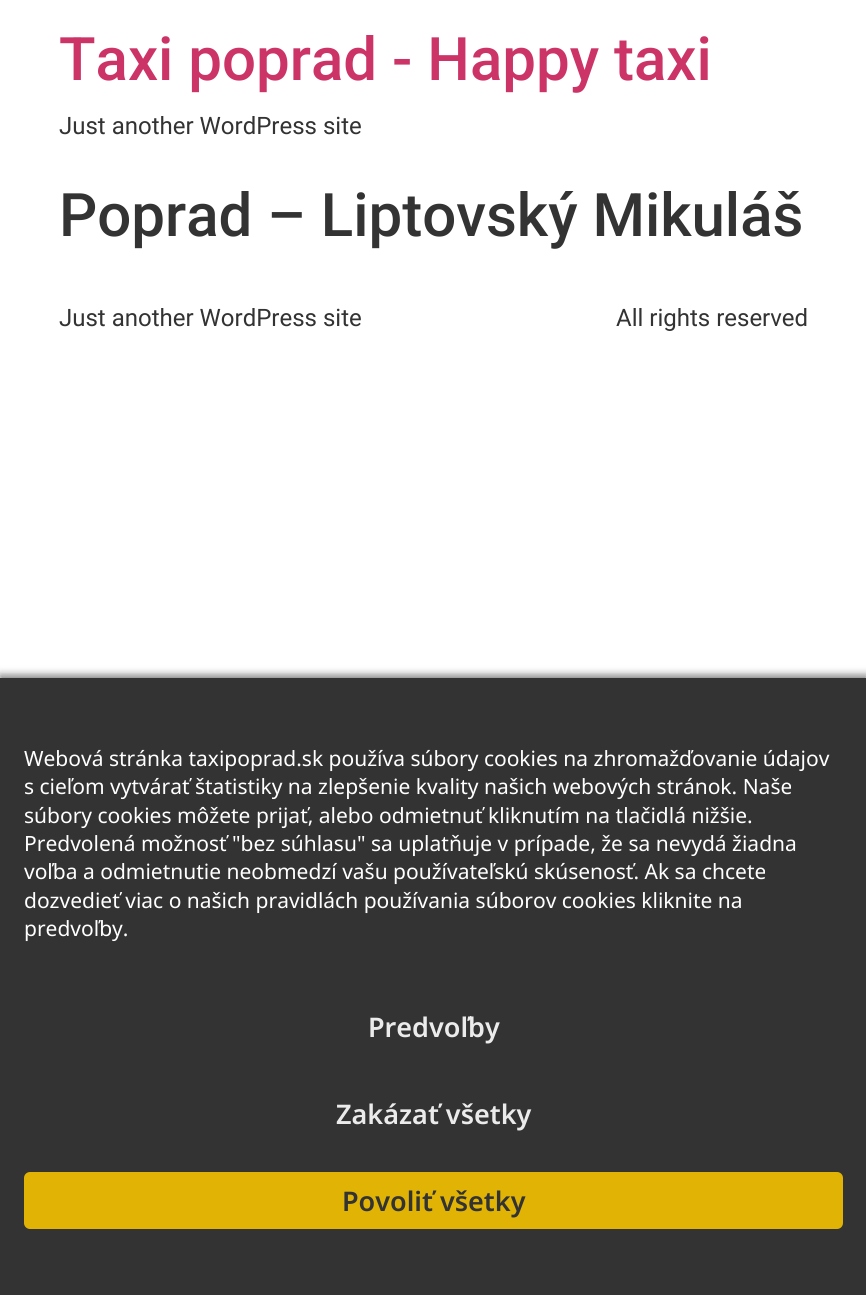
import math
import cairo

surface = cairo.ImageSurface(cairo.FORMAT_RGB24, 866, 1295)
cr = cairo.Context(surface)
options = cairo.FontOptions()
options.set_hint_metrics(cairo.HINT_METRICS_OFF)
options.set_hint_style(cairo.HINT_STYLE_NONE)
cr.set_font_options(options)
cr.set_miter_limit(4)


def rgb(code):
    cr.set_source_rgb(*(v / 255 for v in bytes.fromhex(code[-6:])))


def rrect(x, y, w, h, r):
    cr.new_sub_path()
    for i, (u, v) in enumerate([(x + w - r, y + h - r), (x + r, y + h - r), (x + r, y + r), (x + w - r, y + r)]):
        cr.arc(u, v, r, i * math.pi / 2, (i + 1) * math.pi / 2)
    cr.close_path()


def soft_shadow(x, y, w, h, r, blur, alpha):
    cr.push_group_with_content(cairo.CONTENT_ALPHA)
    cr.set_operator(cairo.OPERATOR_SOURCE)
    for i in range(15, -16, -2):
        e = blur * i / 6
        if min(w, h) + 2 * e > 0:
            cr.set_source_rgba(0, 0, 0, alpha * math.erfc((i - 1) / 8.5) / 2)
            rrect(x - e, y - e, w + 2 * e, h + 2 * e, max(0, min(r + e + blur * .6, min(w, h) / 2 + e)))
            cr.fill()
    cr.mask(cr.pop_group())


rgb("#ffffff")
cr.paint()
rgb("#000000")
soft_shadow(0, 675, 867, 618, 0, 4, 0.5)
rgb("#333333")
cr.rectangle(0, 678, 866, 617)
cr.fill()
rgb("#e0b305")
rrect(24, 1172, 819, 57, 6)
cr.fill()
cr.select_font_face("Roboto Medium")
cr.set_font_size(60)
rgb("#cc3366")
cr.move_to(59, 80)
cr.show_text("Taxi poprad - Happy taxi")
cr.select_font_face("Roboto")
cr.set_font_size(24)
rgb("#333333")
cr.move_to(59, 134)
cr.show_text("Just another WordPress site")
cr.select_font_face("Roboto Medium")
cr.set_font_size(60)
cr.move_to(59, 236)
cr.show_text("Poprad – Liptovský Mikuláš")
cr.select_font_face("Roboto")
cr.set_font_size(24)
cr.move_to(59, 326)
cr.show_text("Just another WordPress site")
cr.move_to(616, 326)
cr.show_text("All rights reserved")
cr.select_font_face("Noto Sans")
cr.set_font_size(21)
rgb("#ffffff")
for x, y, s in [
    (24, 766, "Webová stránka taxipoprad.sk používa súbory cookies na zhromažďovanie údajov"),
    (24, 794, "s cieľom vytvárať štatistiky na zlepšenie kvality našich webových stránok. Naše"),
    (24, 823, "súbory cookies môžete prijať, alebo odmietnuť kliknutím na tlačidlá nižšie."),
    (24, 851, "Predvolená možnosť \"bez súhlasu\" sa uplatňuje v prípade, že sa nevydá žiadna"),
    (24, 879, "voľba a odmietnutie neobmedzí vašu používateľskú skúsenosť. Ak sa chcete"),
    (24, 908, "dozvedieť viac o našich pravidlách používania súborov cookies kliknite na"),
    (24, 936, "predvoľby."),
]:
    cr.move_to(x, y)
    cr.show_text(s)
cr.select_font_face("Noto Sans SemiBold")
cr.set_font_size(27)
rgb("#ebebeb")
cr.move_to(368, 1037)
cr.show_text("Predvoľby")
cr.move_to(336, 1124)
cr.show_text("Zakázať všetky")
rgb("#333333")
cr.move_to(342, 1211)
cr.show_text("Povoliť všetky")
surface.write_to_png("page.png")
